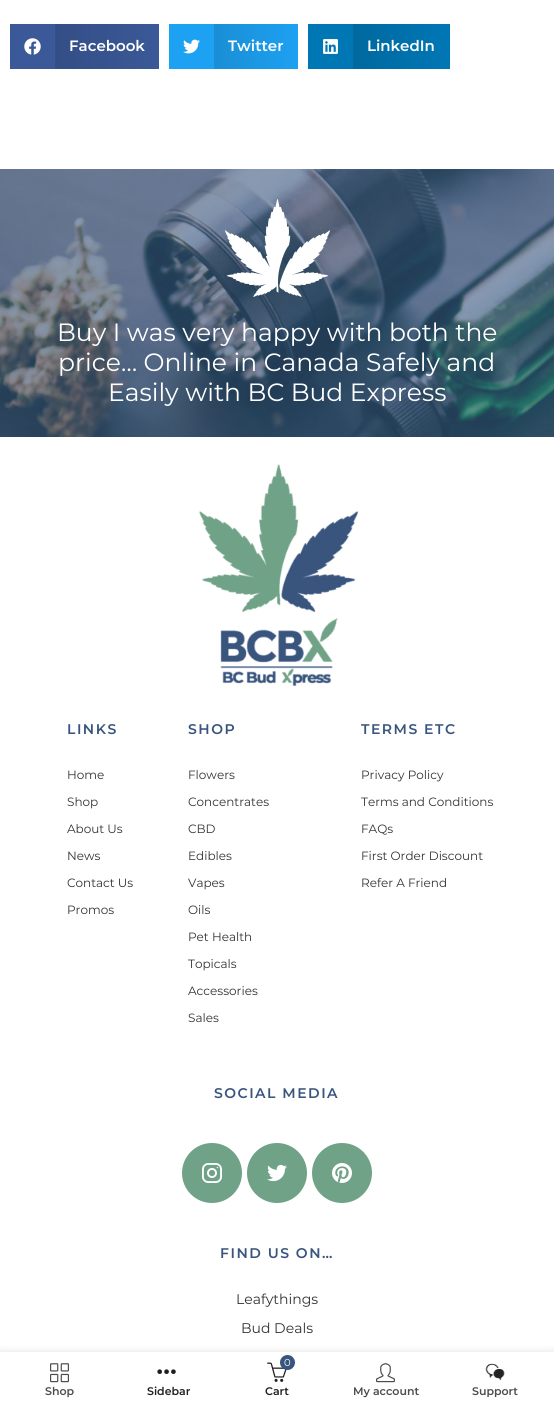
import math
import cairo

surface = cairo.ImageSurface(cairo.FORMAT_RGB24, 554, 1407)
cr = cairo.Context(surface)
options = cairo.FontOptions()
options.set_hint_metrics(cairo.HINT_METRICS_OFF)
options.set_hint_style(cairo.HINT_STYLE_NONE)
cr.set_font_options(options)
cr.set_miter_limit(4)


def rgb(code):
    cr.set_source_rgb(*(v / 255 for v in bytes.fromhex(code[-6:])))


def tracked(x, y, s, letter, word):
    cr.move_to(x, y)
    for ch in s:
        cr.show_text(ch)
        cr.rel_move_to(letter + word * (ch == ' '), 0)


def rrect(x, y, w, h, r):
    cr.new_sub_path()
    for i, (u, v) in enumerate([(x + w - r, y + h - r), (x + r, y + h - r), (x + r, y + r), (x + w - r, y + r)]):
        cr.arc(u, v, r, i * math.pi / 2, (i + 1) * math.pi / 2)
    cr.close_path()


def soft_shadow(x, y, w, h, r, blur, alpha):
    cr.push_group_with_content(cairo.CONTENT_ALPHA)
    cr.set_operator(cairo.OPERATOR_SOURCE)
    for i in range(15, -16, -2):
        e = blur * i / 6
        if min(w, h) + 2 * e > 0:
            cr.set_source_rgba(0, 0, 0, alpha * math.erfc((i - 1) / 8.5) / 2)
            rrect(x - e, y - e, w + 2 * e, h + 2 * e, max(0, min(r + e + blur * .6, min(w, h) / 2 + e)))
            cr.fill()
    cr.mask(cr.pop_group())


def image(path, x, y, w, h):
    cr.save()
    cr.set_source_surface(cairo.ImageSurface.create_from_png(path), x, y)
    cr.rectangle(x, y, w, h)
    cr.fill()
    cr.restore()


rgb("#ffffff")
cr.paint()
rgb("#3b5998")
cr.rectangle(10, 24, 45, 45)
cr.fill()
image("img/1.png", 24, 38, 17, 17)
gradient = cairo.LinearGradient(55, 47, 159, 47)
gradient.add_color_stop_rgba(0, 0.204, 0.306, 0.525, 1)
gradient.add_color_stop_rgba(1, 0.231, 0.349, 0.596, 1)
cr.set_source(gradient)
cr.rectangle(55, 24, 104, 45)
cr.fill()
rgb("#1da1f2")
cr.rectangle(169, 24, 45, 45)
cr.fill()
image("img/2.png", 183, 39, 17, 15)
gradient = cairo.LinearGradient(214, 47, 298, 47)
gradient.add_color_stop_rgba(0, 0.102, 0.557, 0.835, 1)
gradient.add_color_stop_rgba(1, 0.114, 0.631, 0.949, 1)
cr.set_source(gradient)
cr.rectangle(214, 24, 84, 45)
cr.fill()
rgb("#0077b5")
cr.rectangle(308, 24, 45, 45)
cr.fill()
image("img/3.png", 323, 39, 15, 15)
gradient = cairo.LinearGradient(353, 47, 450, 47)
gradient.add_color_stop_rgba(0, 0, 0.412, 0.624, 1)
gradient.add_color_stop_rgba(1, 0, 0.467, 0.71, 1)
cr.set_source(gradient)
cr.rectangle(353, 24, 97, 45)
cr.fill()
image("img/4.png", 0, 169, 554, 268)
image("img/5.png", 225, 199, 105, 98)
image("img/6.png", 199, 464, 160, 223)
rgb("#6fa287")
cr.arc(212, 1173, 30, 0, 2 * math.pi)
cr.fill()
image("img/7.png", 202, 1163, 20, 20)
cr.arc(277, 1173, 30, 0, 2 * math.pi)
cr.fill()
image("img/8.png", 267, 1164, 20, 18)
cr.arc(342, 1173, 30, 0, 2 * math.pi)
cr.fill()
image("img/9.png", 332, 1163, 20, 20)
rgb("#000000")
soft_shadow(0, 1352, 554, 55, 0, 4.5, 0.12)
rgb("#ffffff")
cr.rectangle(0, 1352, 554, 55)
cr.fill()
image("img/10.png", 50, 1363, 19, 20)
image("img/11.png", 157, 1369, 19, 5)
image("img/12.png", 267, 1362, 20, 20)
rgb("#39557e")
cr.arc(287.5, 1362.5, 7.5, 0, 2 * math.pi)
cr.fill()
image("img/13.png", 376, 1363, 19, 20)
image("img/14.png", 485, 1363, 20, 18)
cr.select_font_face("Montserrat SemiBold")
cr.set_font_size(15)
rgb("#ffffff")
for x, y, s in [
    (69, 51, "Facebook"),
    (228, 51, "Twitter"),
    (367, 51, "LinkedIn"),
]:
    cr.move_to(x, y)
    cr.show_text(s)
cr.select_font_face("Montserrat")
cr.set_font_size(25)
for x, y, s in [
    (57, 341, "Buy I was very happy with both the"),
    (58, 371, "price… Online in Canada Safely and"),
    (108, 401, "Easily with BC Bud Express"),
]:
    cr.move_to(x, y)
    cr.show_text(s)
cr.select_font_face("Montserrat SemiBold")
cr.set_font_size(14)
rgb("#39557e")
tracked(67, 734, "LINKS", 1.5, 0)
cr.select_font_face("Montserrat")
cr.set_font_size(12)
rgb("#333333")
for x, y, s in [
    (67, 779, "Home"),
    (67, 806, "Shop"),
    (67, 833, "About Us"),
    (67, 860, "News"),
    (67, 887, "Contact Us"),
    (67, 914, "Promos"),
]:
    cr.move_to(x, y)
    cr.show_text(s)
cr.select_font_face("Montserrat SemiBold")
cr.set_font_size(14)
rgb("#39557e")
tracked(188, 734, "SHOP", 1.5, 0)
cr.select_font_face("Montserrat")
cr.set_font_size(12)
rgb("#333333")
for x, y, s in [
    (188, 779, "Flowers"),
    (188, 806, "Concentrates"),
    (188, 833, "CBD"),
    (188, 860, "Edibles"),
    (188, 887, "Vapes"),
    (188, 914, "Oils"),
    (188, 941, "Pet Health"),
    (188, 968, "Topicals"),
    (188, 995, "Accessories"),
    (188, 1022, "Sales"),
]:
    cr.move_to(x, y)
    cr.show_text(s)
cr.select_font_face("Montserrat SemiBold")
cr.set_font_size(14)
rgb("#39557e")
tracked(361, 734, "TERMS ETC", 1.5, 0)
cr.select_font_face("Montserrat")
cr.set_font_size(12)
rgb("#333333")
for x, y, s in [
    (361, 779, "Privacy Policy"),
    (361, 806, "Terms and Conditions"),
    (361, 833, "FAQs"),
    (361, 860, "First Order Discount"),
    (361, 887, "Refer A Friend"),
]:
    cr.move_to(x, y)
    cr.show_text(s)
cr.select_font_face("Montserrat SemiBold")
cr.set_font_size(14)
rgb("#39557e")
tracked(214, 1098, "SOCIAL MEDIA", 1.5, 0)
tracked(220, 1258, "FIND US ON…", 1.5, 0)
cr.select_font_face("Montserrat")
rgb("#333333")
cr.move_to(236, 1304)
cr.show_text("Leafythings")
cr.move_to(241, 1333)
cr.show_text("Bud Deals")
cr.select_font_face("Montserrat SemiBold")
cr.set_font_size(11)
rgb("#4c4c4c")
cr.move_to(45, 1395)
cr.show_text("Shop")
rgb("#202020")
cr.move_to(147, 1395)
cr.show_text("Sidebar")
cr.select_font_face("Montserrat")
cr.set_font_size(10)
rgb("#ffffff")
cr.move_to(284, 1366)
cr.show_text("0")
cr.select_font_face("Montserrat SemiBold")
cr.set_font_size(11)
rgb("#202020")
cr.move_to(265, 1395)
cr.show_text("Cart")
rgb("#4c4c4c")
cr.move_to(353, 1395)
cr.show_text("My account")
cr.save()
cr.rectangle(450, 1386, 89, 11)
cr.clip()
cr.move_to(472, 1395)
cr.show_text("Support")
cr.restore()
surface.write_to_png("page.png")
